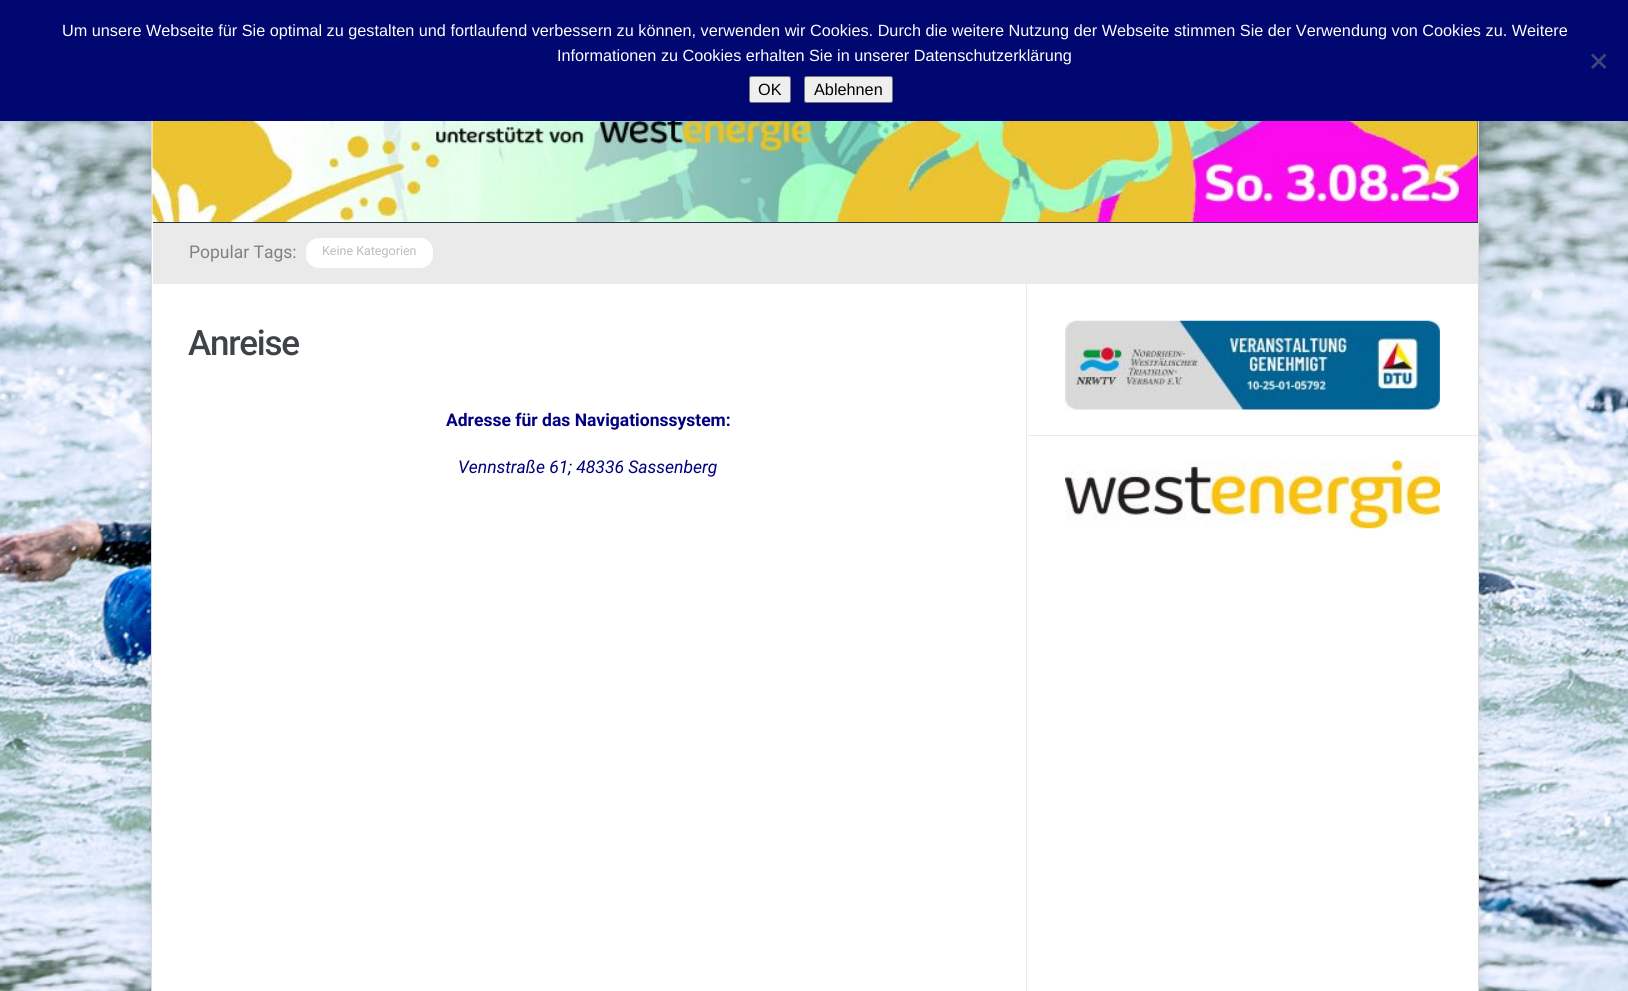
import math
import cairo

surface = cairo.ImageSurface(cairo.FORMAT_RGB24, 1628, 991)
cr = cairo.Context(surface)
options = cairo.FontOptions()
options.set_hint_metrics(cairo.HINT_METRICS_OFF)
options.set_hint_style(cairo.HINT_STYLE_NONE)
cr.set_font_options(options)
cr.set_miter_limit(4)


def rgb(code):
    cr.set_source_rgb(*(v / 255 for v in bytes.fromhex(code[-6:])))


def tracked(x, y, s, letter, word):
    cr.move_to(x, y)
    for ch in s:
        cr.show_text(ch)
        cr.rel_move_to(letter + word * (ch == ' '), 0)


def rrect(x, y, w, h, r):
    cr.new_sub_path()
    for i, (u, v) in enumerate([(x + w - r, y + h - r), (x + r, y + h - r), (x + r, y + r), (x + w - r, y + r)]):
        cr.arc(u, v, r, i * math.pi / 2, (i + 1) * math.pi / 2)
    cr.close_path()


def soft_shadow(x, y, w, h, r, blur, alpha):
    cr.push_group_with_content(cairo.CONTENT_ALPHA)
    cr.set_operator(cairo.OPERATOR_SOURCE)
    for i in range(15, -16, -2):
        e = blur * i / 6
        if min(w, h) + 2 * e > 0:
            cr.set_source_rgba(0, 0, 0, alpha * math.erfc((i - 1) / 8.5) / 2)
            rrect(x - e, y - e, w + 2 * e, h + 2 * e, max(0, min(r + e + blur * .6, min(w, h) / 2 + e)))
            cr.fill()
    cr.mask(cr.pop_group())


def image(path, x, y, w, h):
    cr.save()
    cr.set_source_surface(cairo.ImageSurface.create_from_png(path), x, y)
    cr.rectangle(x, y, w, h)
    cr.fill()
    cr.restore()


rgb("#ffffff")
cr.paint()
image("img/1.png", 0, 121, 1628, 870)
rgb("#000000")
soft_shadow(151, -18, 1328, 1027, 0, 6, 0.1)
rgb("#ffffff")
cr.rectangle(152, 121, 1326, 870)
cr.fill()
cr.rectangle(151.5, -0.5, 1327, 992)
rgb("#dadada")
cr.set_line_width(1)
cr.stroke()
rgb("#000770")
cr.rectangle(0, 0, 1628, 121)
cr.fill()
rgb("#404478")
cr.new_path()
cr.move_to(1604.5, 53.5)
cr.line_to(1606.5, 55.5)
cr.line_to(1593, 69)
cr.line_to(1591, 67)
cr.close_path()
cr.fill()
cr.new_path()
cr.move_to(1591, 55.5)
cr.line_to(1593, 53.5)
cr.line_to(1606.5, 67)
cr.line_to(1604.5, 69)
cr.close_path()
cr.fill()
rgb("#efefef")
rrect(749.5, 76.5, 41, 26, 2)
cr.fill_preserve()
rgb("#767676")
cr.stroke()
rgb("#efefef")
rrect(804.5, 76.5, 88, 26, 2)
cr.fill_preserve()
rgb("#767676")
cr.stroke()
rgb("#213446")
cr.rectangle(153, 121, 1325, 102)
cr.fill()
image("img/2.png", 152, 121, 1326, 101)
rgb("#eaeaea")
cr.rectangle(153, 223, 1325, 61)
cr.fill()
rgb("#ffffff")
rrect(306, 238, 127, 30, 13)
cr.fill()
rgb("#ebebeb")
cr.rectangle(1026, 284, 1, 707)
cr.fill()
cr.rectangle(1028, 435, 450, 1)
cr.fill()
image("img/3.png", 1065, 320, 375, 90)
image("img/4.png", 1065, 460, 375, 69)
cr.select_font_face("Liberation Sans")
cr.set_font_size(16.25)
rgb("#ffffff")
cr.move_to(62, 36)
cr.show_text("Um unsere Webseite für Sie optimal zu gestalten und fortlaufend verbessern zu können, verwenden wir Cookies. Durch die weitere Nutzung der Webseite stimmen Sie der Verwendung von Cookies zu. Weitere")
cr.move_to(557, 61)
cr.show_text("Informationen zu Cookies erhalten Sie in unserer Datenschutzerklärung")
rgb("#000000")
cr.move_to(758, 95)
cr.show_text("OK")
cr.move_to(814, 95)
cr.show_text("Ablehnen")
cr.select_font_face("Roboto")
cr.set_font_size(17.5)
rgb("#827f7f")
cr.move_to(189, 258)
cr.show_text("Popular Tags:")
cr.set_font_size(12.5)
rgb("#bcbcbc")
cr.move_to(322, 255)
cr.show_text("Keine Kategorien")
cr.select_font_face("Roboto Medium")
cr.set_font_size(35)
rgb("#3f4247")
tracked(188, 355, "Anreise", -1.25, 0)
cr.select_font_face("Roboto", cairo.FONT_SLANT_NORMAL, cairo.FONT_WEIGHT_BOLD)
cr.set_font_size(17.5)
rgb("#000080")
cr.move_to(446, 426)
cr.show_text("Adresse für das Navigationssystem:")
cr.select_font_face("Roboto", cairo.FONT_SLANT_ITALIC)
cr.move_to(458, 473)
cr.show_text("Vennstraße 61; 48336 Sassenberg")
surface.write_to_png("page.png")
